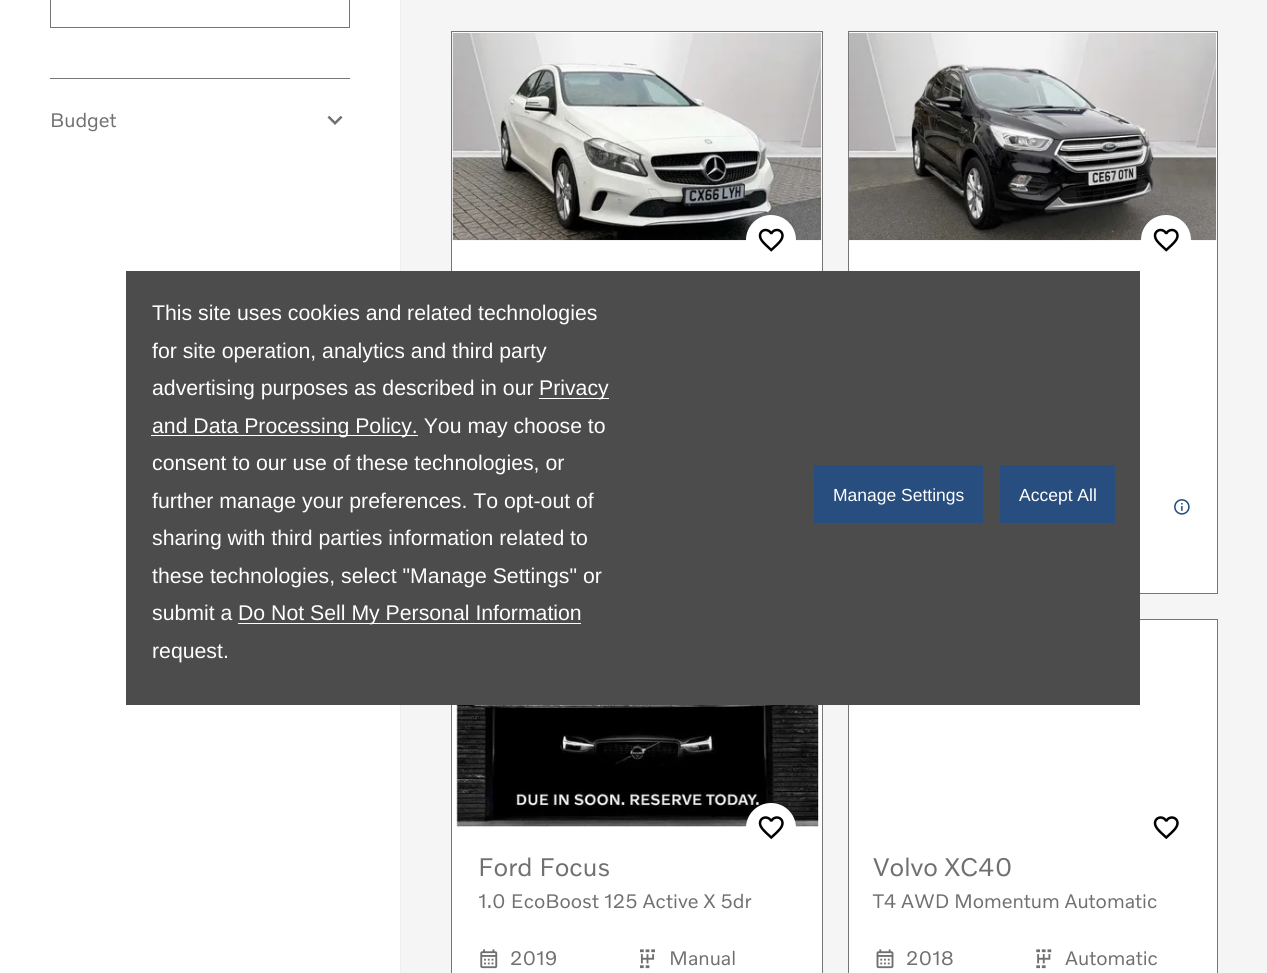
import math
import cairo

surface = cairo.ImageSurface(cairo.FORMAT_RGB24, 1267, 973)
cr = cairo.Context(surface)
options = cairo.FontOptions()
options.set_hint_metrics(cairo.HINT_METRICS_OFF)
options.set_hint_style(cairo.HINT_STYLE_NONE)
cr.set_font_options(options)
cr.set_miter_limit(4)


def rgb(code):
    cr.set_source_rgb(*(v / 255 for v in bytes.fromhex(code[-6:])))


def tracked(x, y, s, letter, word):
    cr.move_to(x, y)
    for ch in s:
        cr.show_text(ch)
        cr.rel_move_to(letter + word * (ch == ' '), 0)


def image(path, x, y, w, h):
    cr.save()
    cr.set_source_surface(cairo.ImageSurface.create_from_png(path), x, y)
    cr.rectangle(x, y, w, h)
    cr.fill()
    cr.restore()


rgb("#ffffff")
cr.paint()
cr.rectangle(50.5, -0.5, 299, 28)
rgb("#757575")
cr.set_line_width(1)
cr.stroke()
cr.rectangle(50, 78, 300, 1)
cr.fill()
image("img/1.png", 327, 115, 16, 10)
for x, y, w, h, color in [
    (401, 0, 866, 973, "#f5f5f6"),
    (400, 0, 1, 973, "#eeeeee"),
    (452, 32, 370, 239, "#ffffff"),
]:
    rgb(color)
    cr.rectangle(x, y, w, h)
    cr.fill()
cr.rectangle(451.5, 31.5, 371, 562)
rgb("#757575")
cr.stroke()
image("img/2.png", 452, 32, 370, 209)
rgb("#ffffff")
cr.arc(771, 240, 25, 0, 2 * math.pi)
cr.fill()
image("img/3.png", 758, 228, 26, 24)
cr.rectangle(848.5, 31.5, 369, 562)
cr.fill_preserve()
rgb("#757575")
cr.stroke()
image("img/4.png", 848, 32, 369, 209)
rgb("#ffffff")
cr.arc(1166, 240, 25, 0, 2 * math.pi)
cr.fill()
image("img/3.png", 1153, 228, 26, 24)
image("img/5.png", 1174, 499, 16, 16)
cr.rectangle(452, 705, 370, 268)
cr.fill()
cr.rectangle(451.5, 619.5, 371, 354)
rgb("#757575")
cr.stroke()
image("img/6.png", 456, 705, 365, 122)
rgb("#ffffff")
cr.arc(771, 828, 25, 0, 2 * math.pi)
cr.fill()
image("img/7.png", 758, 816, 26, 24)
image("img/8.png", 480, 949, 18, 20)
image("img/9.png", 640, 949, 15, 20)
cr.rectangle(848.5, 619.5, 369, 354)
cr.fill_preserve()
rgb("#757575")
cr.stroke()
image("img/7.png", 1153, 816, 26, 24)
image("img/10.png", 876, 949, 18, 20)
image("img/11.png", 1036, 949, 16, 20)
for x, y, w, h, color in [
    (126, 271, 1014, 434, "#4b4c4b"),
    (539, 398, 70, 1, "#ffffff"),
    (151, 435, 267, 1, "#ffffff"),
    (238, 623, 343, 1, "#ffffff"),
    (814, 465, 169, 58, "#284e80"),
    (1000, 465, 115, 58, "#284e80"),
]:
    rgb(color)
    cr.rectangle(x, y, w, h)
    cr.fill()
cr.select_font_face("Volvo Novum")
cr.set_font_size(20)
rgb("#707070")
cr.move_to(50, 127)
cr.show_text("Budget")
cr.set_font_size(26)
cr.move_to(478, 876)
cr.show_text("Ford Focus")
cr.set_font_size(20)
for x, y, s in [
    (478, 908, "1.0 EcoBoost 125 Active X 5dr"),
    (510, 965, "2019"),
    (669, 965, "Manual"),
]:
    cr.move_to(x, y)
    cr.show_text(s)
cr.set_font_size(26)
cr.move_to(873, 876)
cr.show_text("Volvo XC40")
cr.set_font_size(20)
tracked(873, 908, "T4 AWD Momentum Automatic", 0, -0.5)
cr.move_to(906, 965)
cr.show_text("2018")
cr.move_to(1065, 965)
cr.show_text("Automatic")
cr.select_font_face("Liberation Sans")
cr.set_font_size(21.25)
rgb("#ffffff")
for x, y, s in [
    (152, 320, "This site uses cookies and related technologies"),
    (152, 358, "for site operation, analytics and third party"),
    (152, 395, "advertising purposes as described in our"),
    (539, 395, "Privacy"),
    (152, 433, "and Data Processing Policy. You may choose to"),
    (152, 470, "consent to our use of these technologies, or"),
    (152, 508, "further manage your preferences. To opt-out of"),
    (152, 545, "sharing with third parties information related to"),
    (152, 583, "these technologies, select \"Manage Settings\" or"),
    (152, 620, "submit a"),
    (238, 620, "Do Not Sell My Personal Information"),
    (152, 658, "request."),
]:
    cr.move_to(x, y)
    cr.show_text(s)
cr.set_font_size(17.5)
cr.move_to(833, 501)
cr.show_text("Manage Settings")
cr.move_to(1019, 501)
cr.show_text("Accept All")
surface.write_to_png("page.png")
